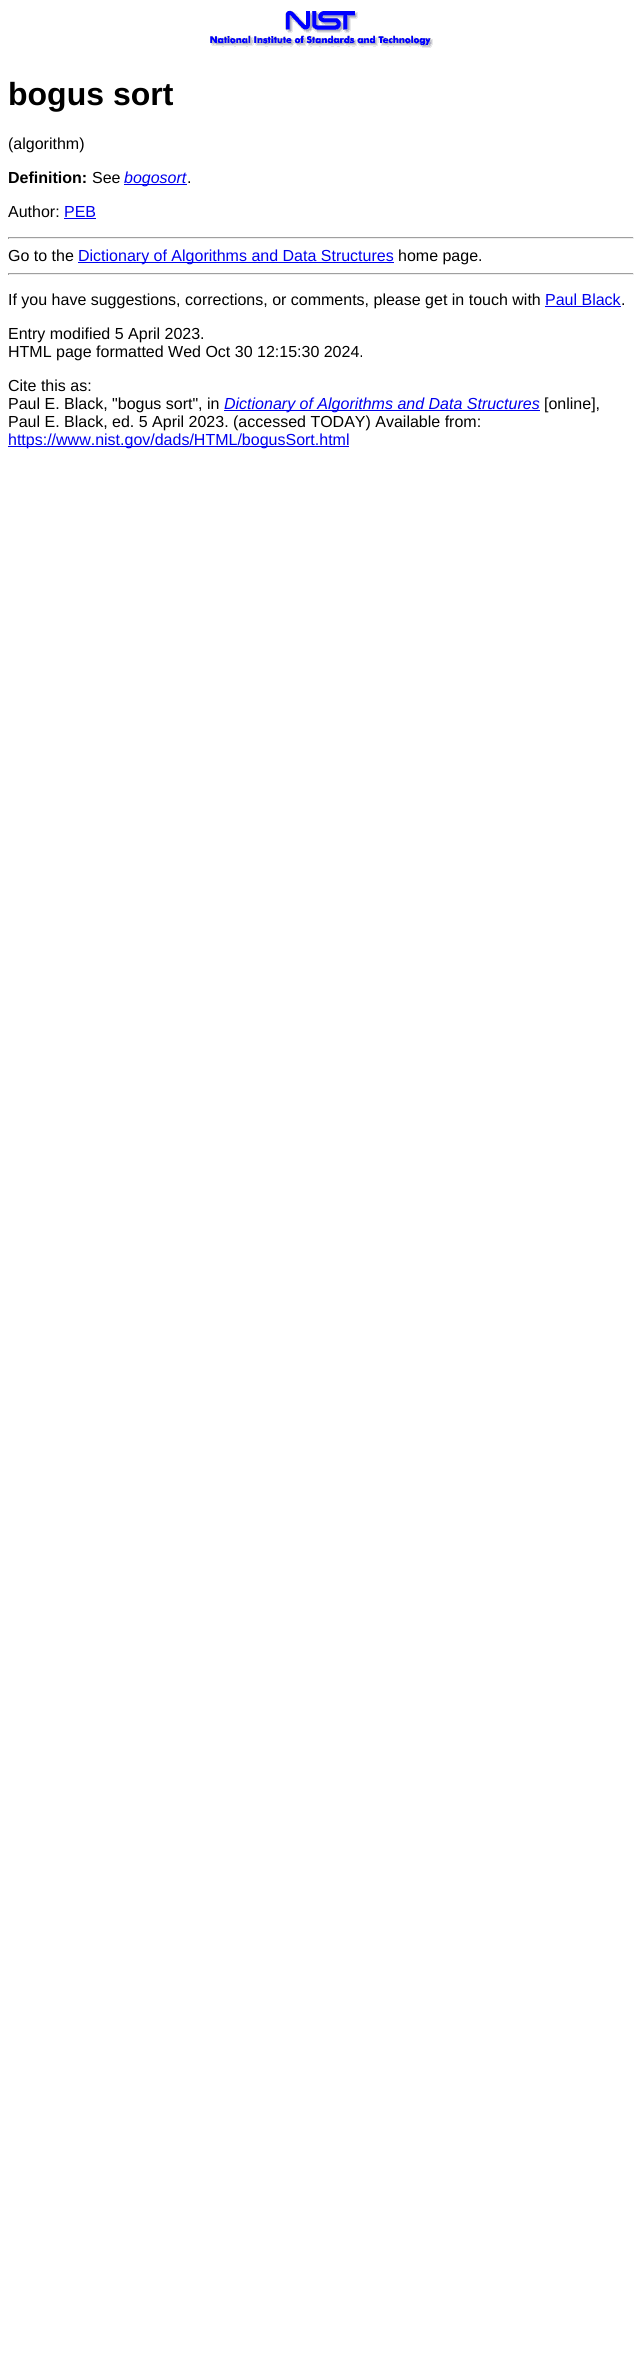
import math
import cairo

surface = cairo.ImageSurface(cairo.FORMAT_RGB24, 642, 2371)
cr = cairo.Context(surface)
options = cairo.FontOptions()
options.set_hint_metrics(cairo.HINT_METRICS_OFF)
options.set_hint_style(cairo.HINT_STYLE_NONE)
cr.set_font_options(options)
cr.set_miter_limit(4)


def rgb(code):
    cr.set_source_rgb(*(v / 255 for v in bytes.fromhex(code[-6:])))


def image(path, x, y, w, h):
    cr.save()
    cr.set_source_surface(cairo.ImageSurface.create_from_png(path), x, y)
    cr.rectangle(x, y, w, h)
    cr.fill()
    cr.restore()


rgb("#ffffff")
cr.paint()
image("img/1.png", 210, 10, 223, 38)
for x, y, w, h, color in [
    (124, 184, 63, 1, "#0000ee"),
    (64, 218, 32, 1, "#0000ee"),
    (8, 237, 626, 1, "#9f9f9f"),
    (633, 237, 1, 2, "#eeeeee"),
    (8, 238, 626, 1, "#eeeeee"),
    (8, 237, 1, 2, "#9f9f9f"),
    (78, 262, 316, 1, "#0000ee"),
    (8, 273, 626, 1, "#9f9f9f"),
    (633, 273, 1, 2, "#eeeeee"),
    (8, 274, 626, 1, "#eeeeee"),
    (8, 273, 1, 2, "#9f9f9f"),
    (545, 306, 76, 1, "#0000ee"),
    (224, 410, 316, 1, "#0000ee"),
    (8, 446, 341, 1, "#0000ee"),
]:
    rgb(color)
    cr.rectangle(x, y, w, h)
    cr.fill()
cr.select_font_face("Liberation Sans", cairo.FONT_SLANT_NORMAL, cairo.FONT_WEIGHT_BOLD)
cr.set_font_size(32)
rgb("#000000")
cr.move_to(8, 105)
cr.show_text("bogus sort")
cr.select_font_face("Liberation Sans")
cr.set_font_size(16)
cr.move_to(8, 149)
cr.show_text("(algorithm)")
cr.select_font_face("Liberation Sans", cairo.FONT_SLANT_NORMAL, cairo.FONT_WEIGHT_BOLD)
cr.move_to(8, 183)
cr.show_text("Definition:")
cr.select_font_face("Liberation Sans")
cr.move_to(92, 183)
cr.show_text("See")
cr.select_font_face("Liberation Sans", cairo.FONT_SLANT_ITALIC)
rgb("#0000ee")
cr.move_to(124, 183)
cr.show_text("bogosort")
cr.select_font_face("Liberation Sans")
rgb("#000000")
cr.move_to(187, 183)
cr.show_text(".")
cr.move_to(8, 217)
cr.show_text("Author:")
rgb("#0000ee")
cr.move_to(64, 217)
cr.show_text("PEB")
rgb("#000000")
cr.move_to(8, 261)
cr.show_text("Go to the")
rgb("#0000ee")
cr.move_to(78, 261)
cr.show_text("Dictionary of Algorithms and Data Structures")
rgb("#000000")
cr.move_to(398, 261)
cr.show_text("home page.")
cr.move_to(8, 305)
cr.show_text("If you have suggestions, corrections, or comments, please get in touch with")
rgb("#0000ee")
cr.move_to(545, 305)
cr.show_text("Paul Black")
rgb("#000000")
for x, y, s in [
    (621, 305, "."),
    (8, 339, "Entry modified 5 April 2023."),
    (8, 357, "HTML page formatted Wed Oct 30 12:15:30 2024."),
    (8, 391, "Cite this as:"),
    (8, 409, "Paul E. Black, \"bogus sort\", in"),
]:
    cr.move_to(x, y)
    cr.show_text(s)
cr.select_font_face("Liberation Sans", cairo.FONT_SLANT_ITALIC)
rgb("#0000ee")
cr.move_to(224, 409)
cr.show_text("Dictionary of Algorithms and Data Structures")
cr.select_font_face("Liberation Sans")
rgb("#000000")
cr.move_to(544, 409)
cr.show_text("[online],")
cr.move_to(8, 427)
cr.show_text("Paul E. Black, ed. 5 April 2023. (accessed TODAY) Available from:")
rgb("#0000ee")
cr.move_to(8, 445)
cr.show_text("https://www.nist.gov/dads/HTML/bogusSort.html")
surface.write_to_png("page.png")
